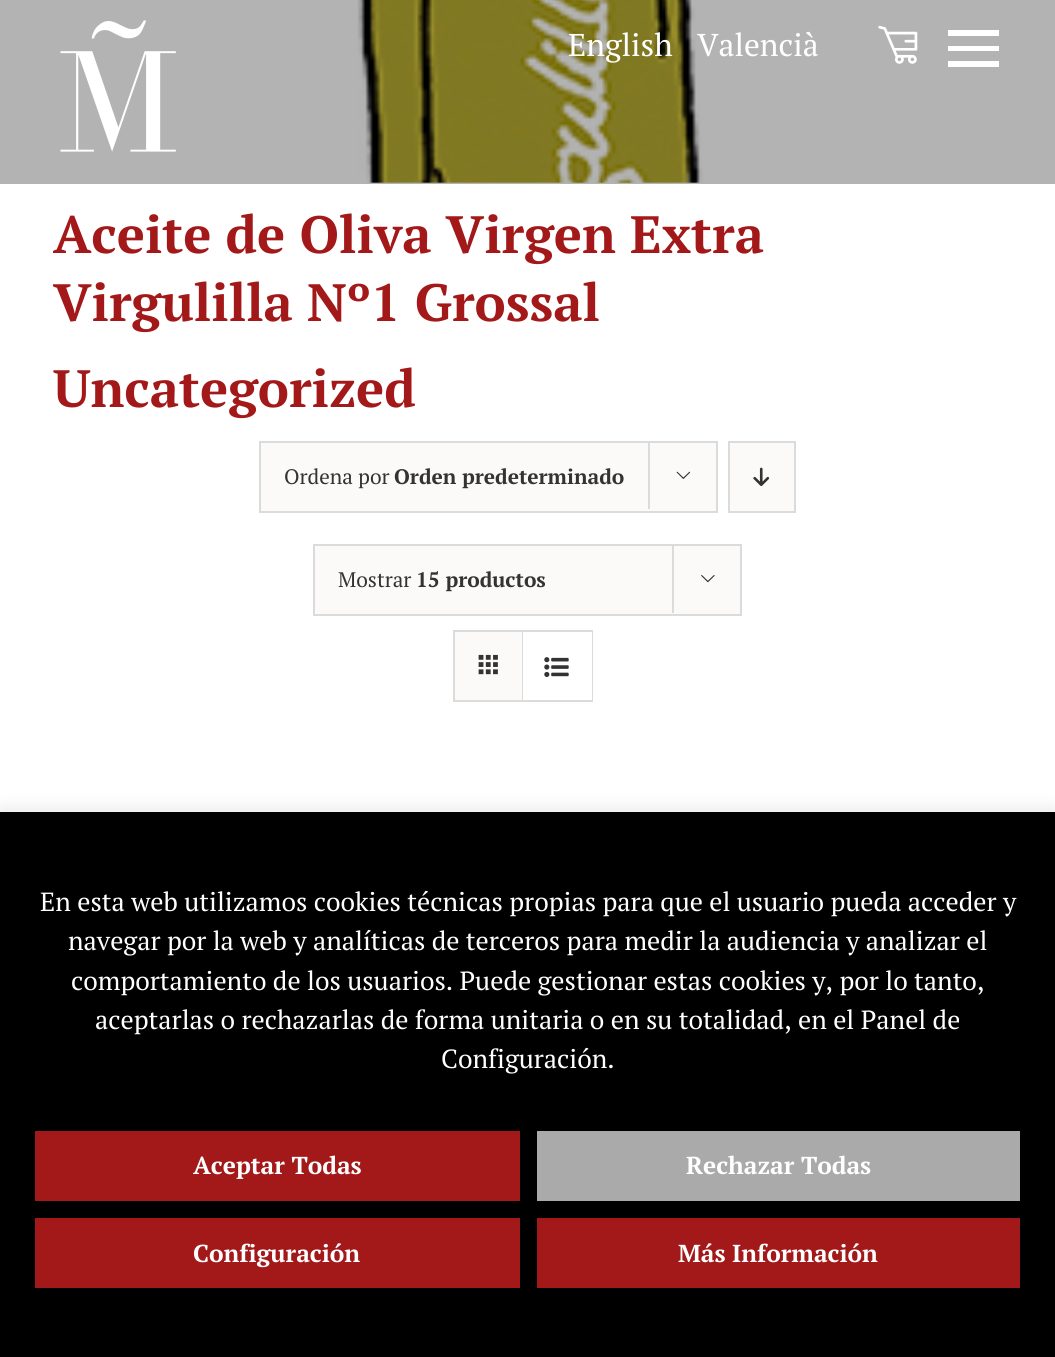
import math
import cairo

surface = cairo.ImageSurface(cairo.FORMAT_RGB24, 1055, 1357)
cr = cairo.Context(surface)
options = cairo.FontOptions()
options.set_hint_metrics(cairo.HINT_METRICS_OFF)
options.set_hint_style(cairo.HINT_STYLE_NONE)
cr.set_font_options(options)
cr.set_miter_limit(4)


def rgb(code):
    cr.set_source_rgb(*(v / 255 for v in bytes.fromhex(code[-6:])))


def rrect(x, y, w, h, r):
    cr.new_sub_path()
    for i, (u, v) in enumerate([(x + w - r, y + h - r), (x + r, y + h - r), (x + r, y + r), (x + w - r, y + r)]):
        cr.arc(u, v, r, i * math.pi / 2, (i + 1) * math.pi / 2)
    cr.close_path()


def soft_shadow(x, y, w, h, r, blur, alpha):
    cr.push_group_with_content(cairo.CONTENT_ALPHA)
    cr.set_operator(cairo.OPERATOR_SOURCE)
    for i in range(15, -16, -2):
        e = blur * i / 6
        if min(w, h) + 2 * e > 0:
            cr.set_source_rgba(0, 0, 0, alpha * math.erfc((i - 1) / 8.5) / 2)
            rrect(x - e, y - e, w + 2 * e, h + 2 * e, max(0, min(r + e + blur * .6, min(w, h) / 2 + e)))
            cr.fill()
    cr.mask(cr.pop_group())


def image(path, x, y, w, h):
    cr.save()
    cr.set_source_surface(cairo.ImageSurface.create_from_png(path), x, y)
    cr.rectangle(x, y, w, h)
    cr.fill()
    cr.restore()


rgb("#ffffff")
cr.paint()
rgb("#b3b3b3")
cr.rectangle(0, 0, 1055, 184)
cr.fill()
image("img/1.png", 357, 0, 346, 183)
image("img/2.png", 60, 20, 116, 132)
image("img/3.png", 878, 25, 40, 39)
rgb("#ffffff")
cr.new_path()
cr.move_to(948, 67)
cr.line_to(999, 67)
cr.line_to(999, 61)
cr.line_to(948, 61)
cr.close_path()
cr.move_to(948, 51)
cr.line_to(999, 51)
cr.line_to(999, 46)
cr.line_to(948, 46)
cr.close_path()
cr.move_to(948, 30)
cr.line_to(948, 36)
cr.line_to(999, 36)
cr.line_to(999, 30)
cr.close_path()
cr.fill()
rgb("#fbfaf9")
cr.rectangle(260, 442, 457, 70)
cr.fill_preserve()
rgb("#dbdbdb")
cr.stroke()
cr.rectangle(648, 441, 2, 68)
cr.fill()
image("img/4.png", 676, 471, 15, 8)
rgb("#fbfaf9")
cr.rectangle(729, 442, 66, 70)
cr.fill_preserve()
rgb("#dbdbdb")
cr.stroke()
image("img/5.png", 753, 467, 17, 19)
rgb("#fbfaf9")
cr.rectangle(314, 545, 427, 70)
cr.fill_preserve()
rgb("#dbdbdb")
cr.stroke()
cr.rectangle(672, 544, 2, 69)
cr.fill()
image("img/6.png", 701, 575, 14, 8)
cr.rectangle(454, 631, 138, 70)
cr.stroke()
rgb("#fbfaf9")
cr.rectangle(455, 632, 67, 68)
cr.fill()
rgb("#dbdbdb")
cr.rectangle(522, 632, 1, 68)
cr.fill()
image("img/7.png", 478, 654, 20, 21)
rgb("#ffffff")
cr.rectangle(591, 632, 1, 68)
cr.fill()
image("img/8.png", 544, 657, 25, 20)
rgb("#acabab")
soft_shadow(0, 810, 1055, 546, 0, 9, 0.3)
for x, y, w, h, color in [
    (0, 812, 1055, 545, "#000000"),
    (35, 1131, 485, 70, "#a3191a"),
    (537, 1131, 483, 70, "#aaaaaa"),
    (35, 1218, 485, 70, "#a3191a"),
    (537, 1218, 483, 70, "#a3191a"),
]:
    rgb(color)
    cr.rectangle(x, y, w, h)
    cr.fill()
cr.select_font_face("PT Serif")
cr.set_font_size(31.5)
rgb("#ffffff")
cr.move_to(568, 56)
cr.show_text("English")
cr.move_to(697, 56)
cr.show_text("Valencià")
cr.select_font_face("PT Serif", cairo.FONT_SLANT_NORMAL, cairo.FONT_WEIGHT_BOLD)
cr.set_font_size(52.5)
rgb("#a3191a")
for x, y, s in [
    (53, 253, "Aceite de Oliva Virgen Extra"),
    (53, 321, "Virgulilla Nº1 Grossal"),
    (53, 407, "Uncategorized"),
]:
    cr.move_to(x, y)
    cr.show_text(s)
cr.select_font_face("PT Serif")
cr.set_font_size(21)
rgb("#333333")
cr.move_to(284, 484)
cr.show_text("Ordena por")
cr.select_font_face("PT Serif", cairo.FONT_SLANT_NORMAL, cairo.FONT_WEIGHT_BOLD)
cr.move_to(394, 484)
cr.show_text("Orden predeterminado")
cr.select_font_face("PT Serif")
cr.move_to(338, 587)
cr.show_text("Mostrar")
cr.select_font_face("PT Serif", cairo.FONT_SLANT_NORMAL, cairo.FONT_WEIGHT_BOLD)
cr.move_to(416, 587)
cr.show_text("15 productos")
cr.select_font_face("PT Serif")
cr.set_font_size(26.25)
rgb("#ffffff")
for x, y, s in [
    (40, 911, "En esta web utilizamos cookies técnicas propias para que el usuario pueda acceder y"),
    (68, 950, "navegar por la web y analíticas de terceros para medir la audiencia y analizar el"),
    (71, 990, "comportamiento de los usuarios. Puede gestionar estas cookies y, por lo tanto,"),
    (95, 1029, "aceptarlas o rechazarlas de forma unitaria o en su totalidad, en el Panel de"),
    (441, 1068, "Configuración."),
]:
    cr.move_to(x, y)
    cr.show_text(s)
cr.select_font_face("PT Serif", cairo.FONT_SLANT_NORMAL, cairo.FONT_WEIGHT_BOLD)
cr.set_font_size(24.5)
for x, y, s in [
    (193, 1174, "Aceptar Todas"),
    (686, 1174, "Rechazar Todas"),
    (193, 1262, "Configuración"),
    (678, 1262, "Más Información"),
]:
    cr.move_to(x, y)
    cr.show_text(s)
surface.write_to_png("page.png")
